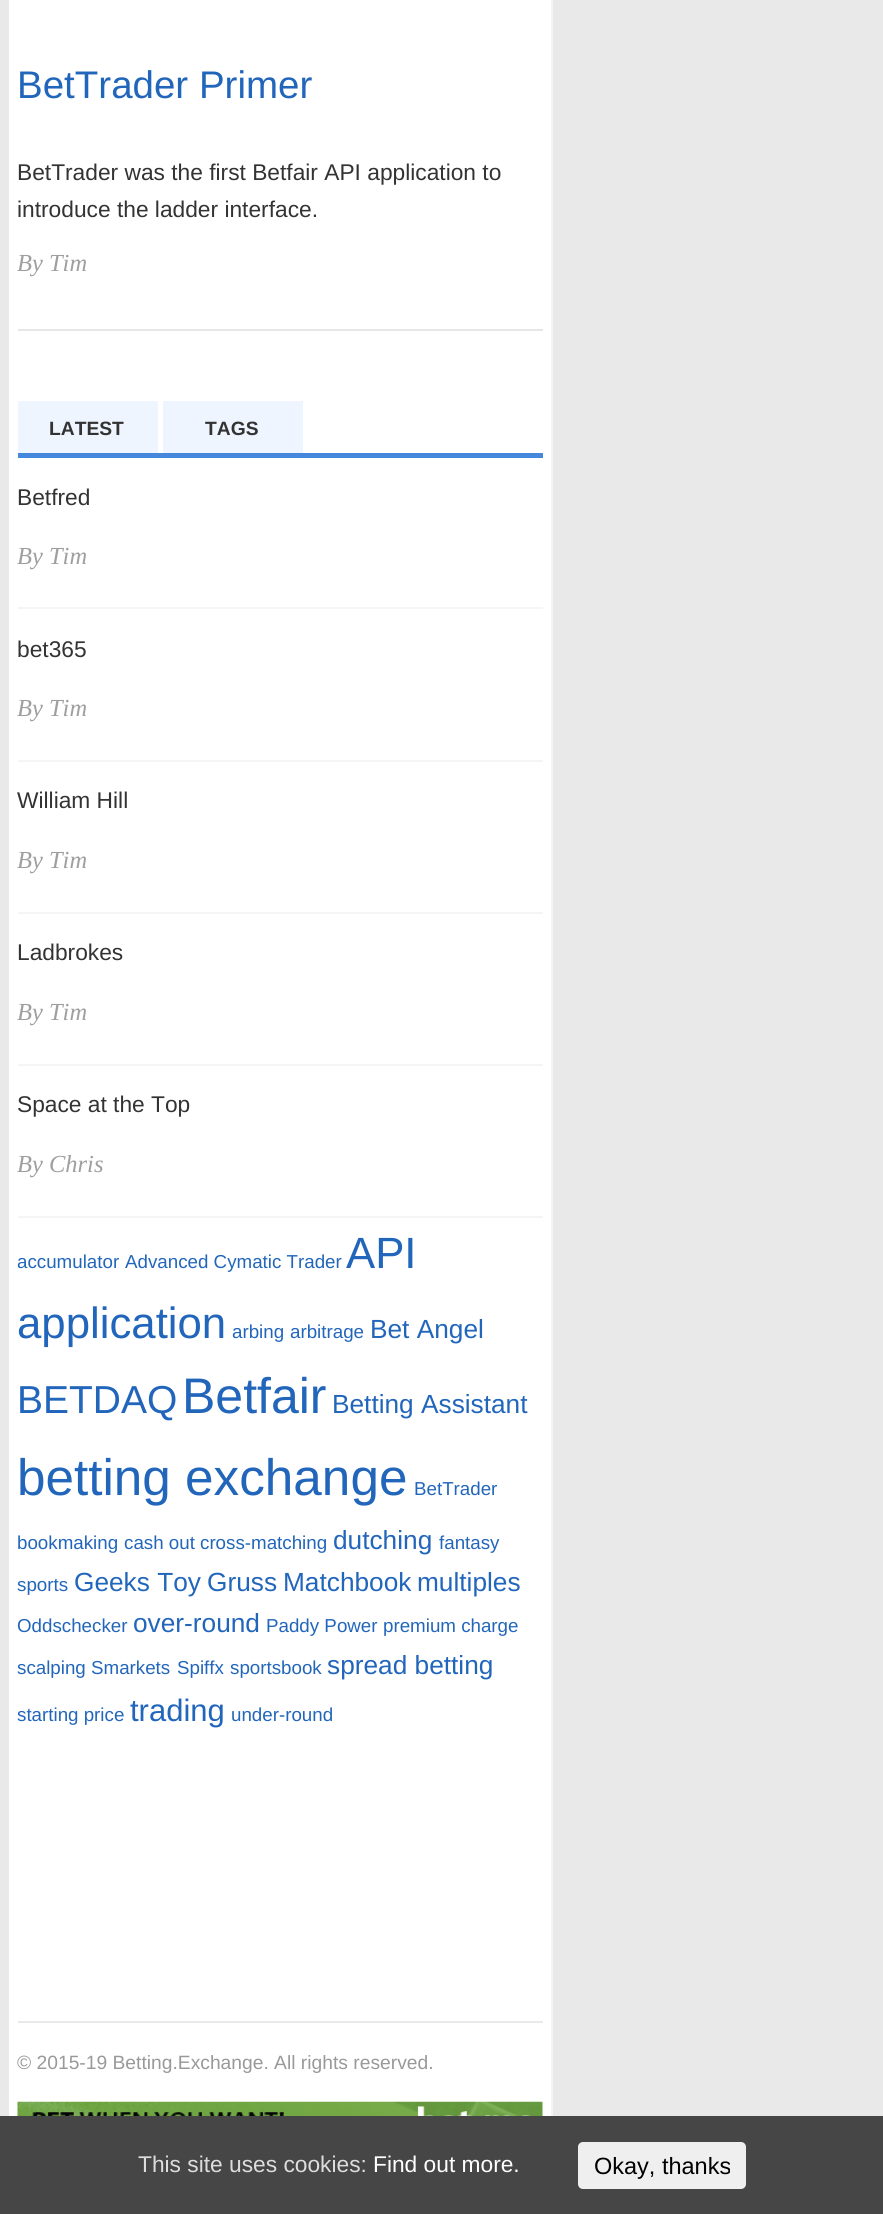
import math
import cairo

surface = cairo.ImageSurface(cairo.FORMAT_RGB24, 883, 2214)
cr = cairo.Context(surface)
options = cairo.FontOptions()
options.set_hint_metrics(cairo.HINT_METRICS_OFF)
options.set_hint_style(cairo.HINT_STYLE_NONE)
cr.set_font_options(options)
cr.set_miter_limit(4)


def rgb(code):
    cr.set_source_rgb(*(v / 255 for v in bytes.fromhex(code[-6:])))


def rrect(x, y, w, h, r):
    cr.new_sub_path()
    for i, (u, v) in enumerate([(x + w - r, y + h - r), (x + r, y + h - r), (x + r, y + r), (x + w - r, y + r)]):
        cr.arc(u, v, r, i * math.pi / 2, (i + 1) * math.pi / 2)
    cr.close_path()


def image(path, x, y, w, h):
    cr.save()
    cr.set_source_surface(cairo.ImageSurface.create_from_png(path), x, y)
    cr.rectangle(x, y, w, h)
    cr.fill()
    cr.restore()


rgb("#e9e9e9")
cr.paint()
for x, y, w, h, color in [
    (9, 0, 542, 2116, "#ffffff"),
    (551, 0, 2, 2116, "#f4f4f4"),
    (18, 329, 525, 2, "#e6e6e6"),
    (18, 453, 525, 5, "#4488dd"),
    (18, 401, 140, 52, "#eef5ff"),
    (163, 401, 140, 52, "#eef5ff"),
    (18, 607, 525, 2, "#f5f5f5"),
    (18, 760, 525, 2, "#f5f5f5"),
    (18, 912, 525, 2, "#f5f5f5"),
    (18, 1064, 525, 2, "#f5f5f5"),
    (18, 1216, 525, 2, "#f5f5f5"),
    (18, 2021, 525, 2, "#e9e9e9"),
]:
    rgb(color)
    cr.rectangle(x, y, w, h)
    cr.fill()
image("img/1.png", 17, 2101, 526, 15)
rgb("#464646")
cr.rectangle(0, 2116, 883, 98)
cr.fill()
rgb("#efefef")
rrect(578, 2142, 168, 47, 5)
cr.fill()
cr.select_font_face("Liberation Sans")
cr.set_font_size(38.5)
rgb("#2266bb")
cr.move_to(17, 98)
cr.show_text("BetTrader Primer")
cr.set_font_size(22.75)
rgb("#333333")
cr.move_to(17, 180)
cr.show_text("BetTrader was the first Betfair API application to")
cr.move_to(17, 217)
cr.show_text("introduce the ladder interface.")
cr.select_font_face("Liberation Serif", cairo.FONT_SLANT_ITALIC)
cr.set_font_size(24.5)
rgb("#9f9f9f")
cr.move_to(17, 271)
cr.show_text("By Tim")
cr.select_font_face("Liberation Sans", cairo.FONT_SLANT_NORMAL, cairo.FONT_WEIGHT_BOLD)
cr.set_font_size(19.25)
rgb("#333333")
cr.move_to(49, 435)
cr.show_text("LATEST")
cr.move_to(205, 435)
cr.show_text("TAGS")
cr.select_font_face("Liberation Sans")
cr.set_font_size(22.75)
cr.move_to(17, 505)
cr.show_text("Betfred")
cr.select_font_face("Liberation Serif", cairo.FONT_SLANT_ITALIC)
cr.set_font_size(24.5)
rgb("#9f9f9f")
cr.move_to(17, 564)
cr.show_text("By Tim")
cr.select_font_face("Liberation Sans")
cr.set_font_size(22.75)
rgb("#333333")
cr.move_to(17, 657)
cr.show_text("bet365")
cr.select_font_face("Liberation Serif", cairo.FONT_SLANT_ITALIC)
cr.set_font_size(24.5)
rgb("#9f9f9f")
cr.move_to(17, 716)
cr.show_text("By Tim")
cr.select_font_face("Liberation Sans")
cr.set_font_size(22.75)
rgb("#333333")
cr.move_to(17, 808)
cr.show_text("William Hill")
cr.select_font_face("Liberation Serif", cairo.FONT_SLANT_ITALIC)
cr.set_font_size(24.5)
rgb("#9f9f9f")
cr.move_to(17, 868)
cr.show_text("By Tim")
cr.select_font_face("Liberation Sans")
cr.set_font_size(22.75)
rgb("#333333")
cr.move_to(17, 960)
cr.show_text("Ladbrokes")
cr.select_font_face("Liberation Serif", cairo.FONT_SLANT_ITALIC)
cr.set_font_size(24.5)
rgb("#9f9f9f")
cr.move_to(17, 1020)
cr.show_text("By Tim")
cr.select_font_face("Liberation Sans")
cr.set_font_size(22.75)
rgb("#333333")
cr.move_to(17, 1112)
cr.show_text("Space at the Top")
cr.select_font_face("Liberation Serif", cairo.FONT_SLANT_ITALIC)
cr.set_font_size(24.5)
rgb("#9f9f9f")
cr.move_to(17, 1172)
cr.show_text("By Chris")
cr.select_font_face("Liberation Sans")
cr.set_font_size(18.75)
rgb("#2266bb")
cr.move_to(17, 1268)
cr.show_text("accumulator")
cr.move_to(125, 1268)
cr.show_text("Advanced Cymatic Trader")
cr.set_font_size(43.75)
cr.move_to(346, 1268)
cr.show_text("API")
cr.move_to(17, 1338)
cr.show_text("application")
cr.set_font_size(18.75)
cr.move_to(232, 1338)
cr.show_text("arbing")
cr.move_to(290, 1338)
cr.show_text("arbitrage")
cr.set_font_size(26.25)
cr.move_to(370, 1338)
cr.show_text("Bet Angel")
cr.set_font_size(39)
cr.move_to(17, 1413)
cr.show_text("BETDAQ")
cr.set_font_size(50)
cr.move_to(182, 1413)
cr.show_text("Betfair")
cr.set_font_size(26.25)
cr.move_to(332, 1413)
cr.show_text("Betting Assistant")
cr.set_font_size(51.25)
cr.move_to(17, 1495)
cr.show_text("betting exchange")
cr.set_font_size(18.75)
for x, y, s in [
    (414, 1495, "BetTrader"),
    (17, 1549, "bookmaking"),
    (124, 1549, "cash out"),
    (200, 1549, "cross-matching"),
]:
    cr.move_to(x, y)
    cr.show_text(s)
cr.set_font_size(26.25)
cr.move_to(333, 1549)
cr.show_text("dutching")
cr.set_font_size(18.75)
cr.move_to(439, 1549)
cr.show_text("fantasy")
cr.move_to(17, 1591)
cr.show_text("sports")
cr.set_font_size(26.25)
for x, y, s in [
    (74, 1591, "Geeks Toy"),
    (207, 1591, "Gruss"),
    (283, 1591, "Matchbook"),
    (417, 1591, "multiples"),
]:
    cr.move_to(x, y)
    cr.show_text(s)
cr.set_font_size(18.75)
cr.move_to(17, 1632)
cr.show_text("Oddschecker")
cr.set_font_size(26.25)
cr.move_to(133, 1632)
cr.show_text("over-round")
cr.set_font_size(18.75)
for x, y, s in [
    (266, 1632, "Paddy Power"),
    (383, 1632, "premium charge"),
    (17, 1674, "scalping"),
    (91, 1674, "Smarkets"),
    (177, 1674, "Spiffx"),
    (230, 1674, "sportsbook"),
]:
    cr.move_to(x, y)
    cr.show_text(s)
cr.set_font_size(26.25)
cr.move_to(327, 1674)
cr.show_text("spread betting")
cr.set_font_size(18.75)
cr.move_to(17, 1721)
cr.show_text("starting price")
cr.set_font_size(31)
cr.move_to(130, 1721)
cr.show_text("trading")
cr.set_font_size(18.75)
cr.move_to(231, 1721)
cr.show_text("under-round")
cr.set_font_size(19.25)
rgb("#999999")
cr.move_to(17, 2069)
cr.show_text("© 2015-19 Betting.Exchange. All rights reserved.")
cr.set_font_size(22.75)
rgb("#dddddd")
cr.move_to(138, 2172)
cr.show_text("This site uses cookies:")
rgb("#ffffff")
cr.move_to(373, 2172)
cr.show_text("Find out more.")
cr.set_font_size(23.5)
rgb("#000000")
cr.move_to(594, 2174)
cr.show_text("Okay, thanks")
surface.write_to_png("page.png")
